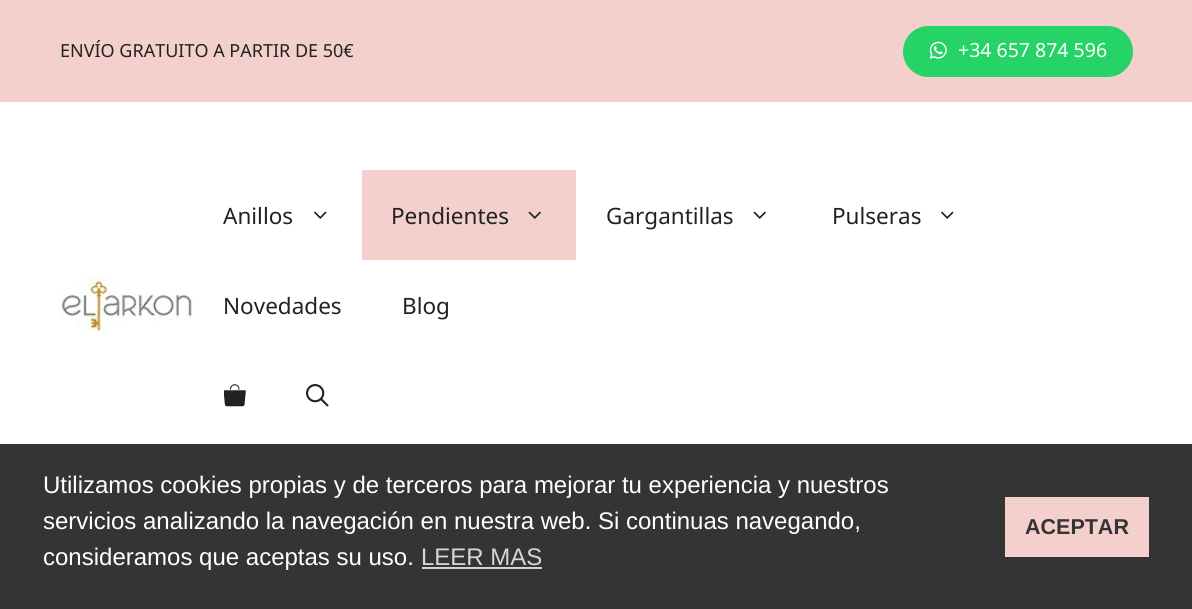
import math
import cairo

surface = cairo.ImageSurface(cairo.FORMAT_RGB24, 1192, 609)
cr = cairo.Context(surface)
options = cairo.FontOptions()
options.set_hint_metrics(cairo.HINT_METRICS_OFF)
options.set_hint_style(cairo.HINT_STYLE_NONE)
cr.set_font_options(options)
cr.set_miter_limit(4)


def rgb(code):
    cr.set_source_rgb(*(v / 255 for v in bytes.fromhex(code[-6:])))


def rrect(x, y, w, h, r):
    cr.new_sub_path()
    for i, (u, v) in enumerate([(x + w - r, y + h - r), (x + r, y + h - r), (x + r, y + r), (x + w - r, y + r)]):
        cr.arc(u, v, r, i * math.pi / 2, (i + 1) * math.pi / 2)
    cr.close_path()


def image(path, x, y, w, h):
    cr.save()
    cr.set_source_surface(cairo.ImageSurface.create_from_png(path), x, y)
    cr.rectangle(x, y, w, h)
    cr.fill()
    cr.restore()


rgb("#ffffff")
cr.paint()
rgb("#f3d0cc")
cr.rectangle(0, 0, 1192, 102)
cr.fill()
rgb("#25d366")
rrect(903, 26, 230, 51, 25.5)
cr.fill()
image("img/1.png", 929, 41, 18, 18)
image("img/2.png", 60, 276, 133, 56)
image("img/3.png", 314, 211, 13, 8)
rgb("#f3d0cc")
cr.rectangle(362, 170, 214, 90)
cr.fill()
image("img/4.png", 528, 211, 13, 8)
image("img/5.png", 753, 211, 13, 8)
image("img/3.png", 941, 211, 13, 8)
image("img/6.png", 224, 384, 22, 23)
image("img/7.png", 306, 384, 23, 23)
for x, y, w, h, color in [
    (0, 444, 1192, 165, "#343434"),
    (422, 567, 120, 2, "#d6d6d6"),
    (1005, 497, 144, 60, "#f3d0cc"),
]:
    rgb(color)
    cr.rectangle(x, y, w, h)
    cr.fill()
cr.select_font_face("Noto Sans")
cr.set_font_size(18)
rgb("#222222")
cr.move_to(60, 57)
cr.show_text("ENVÍO GRATUITO A PARTIR DE 50€")
cr.set_font_size(19.5)
rgb("#ffffff")
cr.move_to(958, 57)
cr.show_text("+34 657 874 596")
cr.set_font_size(22.5)
rgb("#222222")
for x, y, s in [
    (223, 224, "Anillos"),
    (391, 224, "Pendientes"),
    (606, 224, "Gargantillas"),
    (832, 224, "Pulseras"),
    (223, 314, "Novedades"),
    (402, 314, "Blog"),
]:
    cr.move_to(x, y)
    cr.show_text(s)
cr.select_font_face("Liberation Sans")
cr.set_font_size(24)
rgb("#ffffff")
for x, y, s in [
    (43, 493, "Utilizamos cookies propias y de terceros para mejorar tu experiencia y nuestros"),
    (43, 529, "servicios analizando la navegación en nuestra web. Si continuas navegando,"),
    (43, 565, "consideramos que aceptas su uso."),
]:
    cr.move_to(x, y)
    cr.show_text(s)
rgb("#d6d6d6")
cr.move_to(421, 565)
cr.show_text("LEER MAS")
cr.select_font_face("Liberation Sans", cairo.FONT_SLANT_NORMAL, cairo.FONT_WEIGHT_BOLD)
cr.set_font_size(21.5)
rgb("#343434")
cr.move_to(1025, 534)
cr.show_text("ACEPTAR")
surface.write_to_png("page.png")
